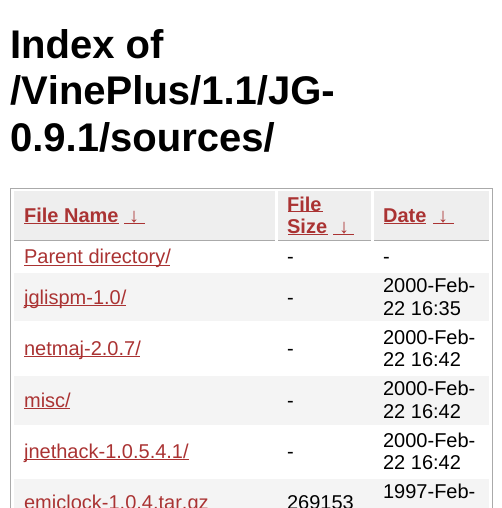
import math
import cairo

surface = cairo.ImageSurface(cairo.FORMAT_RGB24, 502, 508)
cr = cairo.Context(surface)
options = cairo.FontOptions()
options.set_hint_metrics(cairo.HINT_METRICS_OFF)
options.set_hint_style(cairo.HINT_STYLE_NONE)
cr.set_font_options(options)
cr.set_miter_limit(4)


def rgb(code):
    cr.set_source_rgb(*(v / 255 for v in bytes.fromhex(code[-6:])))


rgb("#ffffff")
cr.paint()
cr.rectangle(10.5, 188.5, 482, 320)
rgb("#aaaaaa")
cr.set_line_width(1)
cr.stroke()
for x, y, w, h, color in [
    (14, 191, 261, 49, "#eeeeee"),
    (14, 240, 261, 1, "#aaaaaa"),
    (24, 223, 95, 1, "#aa3333"),
    (124, 223, 21, 1, "#aa3333"),
    (278, 191, 93, 49, "#eeeeee"),
    (278, 240, 93, 1, "#aaaaaa"),
    (288, 211, 35, 1, "#aa3333"),
    (288, 234, 40, 1, "#aa3333"),
    (333, 234, 21, 1, "#aa3333"),
    (374, 191, 115, 49, "#eeeeee"),
    (374, 240, 115, 1, "#aaaaaa"),
    (384, 223, 42, 1, "#aa3333"),
    (433, 223, 21, 1, "#aa3333"),
    (24, 265, 146, 1, "#aa3333"),
    (14, 273, 475, 48, "#f4f4f4"),
    (24, 305, 102, 1, "#aa3333"),
    (24, 356, 116, 1, "#aa3333"),
    (14, 376, 475, 49, "#f4f4f4"),
    (24, 408, 46, 1, "#aa3333"),
    (24, 459, 165, 1, "#aa3333"),
    (14, 479, 475, 29, "#f4f4f4"),
]:
    rgb(color)
    cr.rectangle(x, y, w, h)
    cr.fill()
cr.select_font_face("Liberation Sans", cairo.FONT_SLANT_NORMAL, cairo.FONT_WEIGHT_BOLD)
cr.set_font_size(40)
rgb("#000000")
for x, y, s in [
    (10, 58, "Index of"),
    (10, 104, "/VinePlus/1.1/JG-"),
    (10, 151, "0.9.1/sources/"),
]:
    cr.move_to(x, y)
    cr.show_text(s)
cr.set_font_size(20)
rgb("#aa3333")
for x, y, s in [
    (24, 222, "File Name"),
    (129, 222, "↓"),
    (287, 211, "File"),
    (287, 233, "Size"),
    (339, 233, "↓"),
    (383, 222, "Date"),
    (438, 222, "↓"),
]:
    cr.move_to(x, y)
    cr.show_text(s)
cr.select_font_face("Liberation Sans")
cr.move_to(24, 263)
cr.show_text("Parent directory/")
rgb("#000000")
cr.move_to(287, 263)
cr.show_text("-")
cr.move_to(383, 263)
cr.show_text("-")
rgb("#aa3333")
cr.move_to(24, 304)
cr.show_text("jglispm-1.0/")
rgb("#000000")
for x, y, s in [
    (287, 304, "-"),
    (383, 292, "2000-Feb-"),
    (383, 315, "22 16:35"),
]:
    cr.move_to(x, y)
    cr.show_text(s)
rgb("#aa3333")
cr.move_to(24, 355)
cr.show_text("netmaj-2.0.7/")
rgb("#000000")
for x, y, s in [
    (287, 355, "-"),
    (383, 344, "2000-Feb-"),
    (383, 366, "22 16:42"),
]:
    cr.move_to(x, y)
    cr.show_text(s)
rgb("#aa3333")
cr.move_to(24, 407)
cr.show_text("misc/")
rgb("#000000")
for x, y, s in [
    (287, 407, "-"),
    (383, 395, "2000-Feb-"),
    (383, 418, "22 16:42"),
]:
    cr.move_to(x, y)
    cr.show_text(s)
rgb("#aa3333")
cr.move_to(24, 458)
cr.show_text("jnethack-1.0.5.4.1/")
rgb("#000000")
for x, y, s in [
    (287, 458, "-"),
    (383, 447, "2000-Feb-"),
    (383, 469, "22 16:42"),
    (383, 498, "1997-Feb-"),
]:
    cr.move_to(x, y)
    cr.show_text(s)
rgb("#aa3333")
cr.move_to(24, 509)
cr.show_text("emiclock-1.0.4.tar.gz")
rgb("#000000")
cr.move_to(287, 509)
cr.show_text("269153")
surface.write_to_png("page.png")
